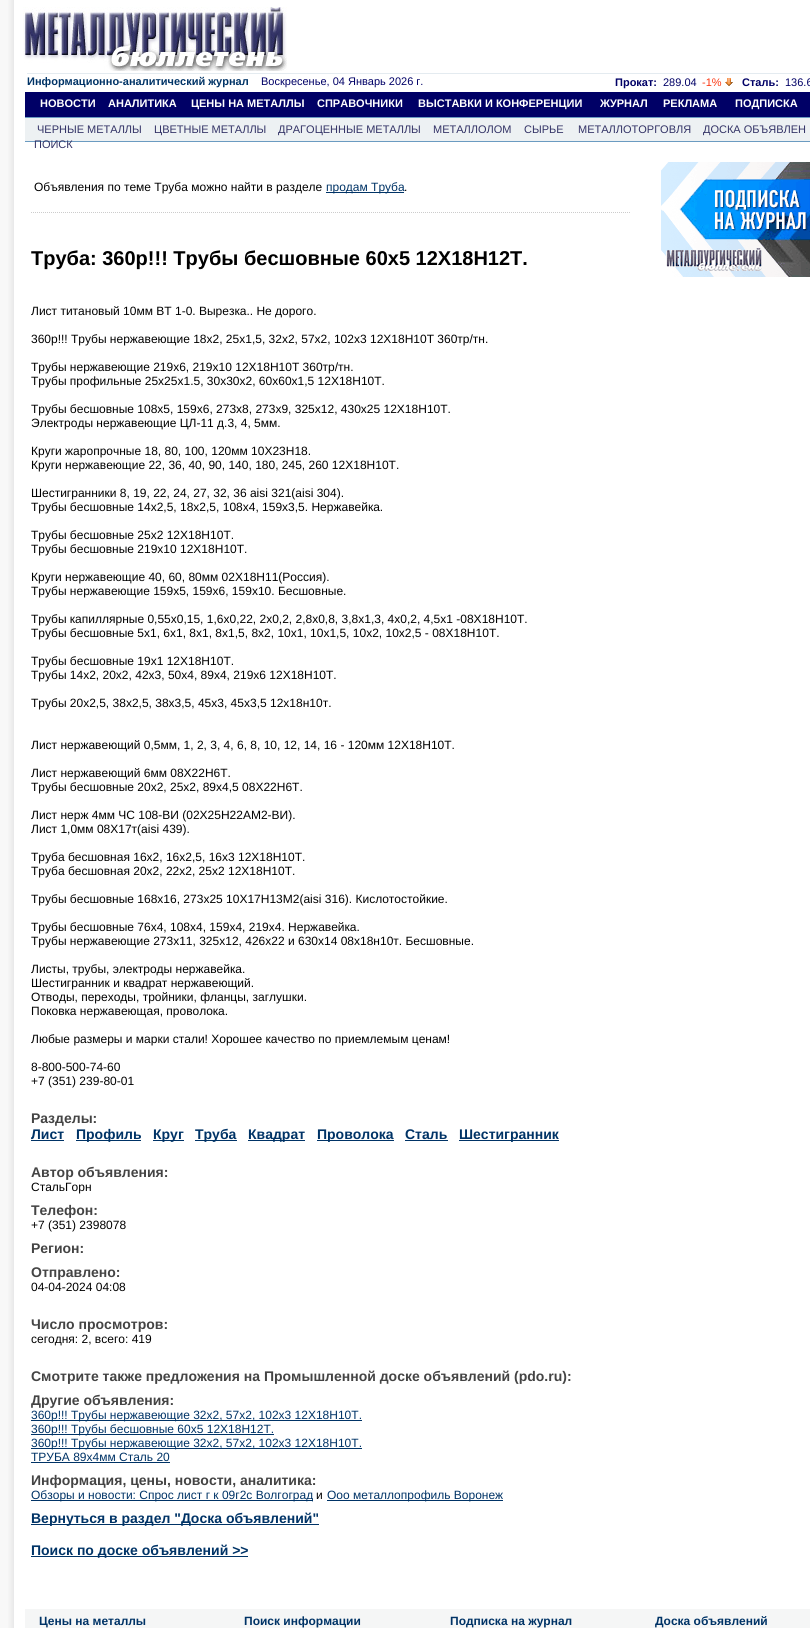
import math
import cairo

surface = cairo.ImageSurface(cairo.FORMAT_RGB24, 810, 1628)
cr = cairo.Context(surface)
options = cairo.FontOptions()
options.set_hint_metrics(cairo.HINT_METRICS_OFF)
options.set_hint_style(cairo.HINT_STYLE_NONE)
cr.set_font_options(options)
cr.set_miter_limit(4)


def rgb(code):
    cr.set_source_rgb(*(v / 255 for v in bytes.fromhex(code[-6:])))


def image(path, x, y, w, h):
    cr.save()
    cr.set_source_surface(cairo.ImageSurface.create_from_png(path), x, y)
    cr.rectangle(x, y, w, h)
    cr.fill()
    cr.restore()


rgb("#f8f8f8")
cr.paint()
rgb("#ffffff")
cr.rectangle(14, 0, 796, 1628)
cr.fill()
image("img/1.png", 8, 0, 6, 1628)
image("img/2.png", 23, 7, 264, 64)
rgb("#e4ebf0")
cr.rectangle(27, 73, 783, 1)
cr.fill()
image("img/3.png", 725, 78, 8, 8)
for x, y, w, h, color in [
    (25, 92, 785, 25, "#000066"),
    (25, 118, 785, 23, "#edf1f3"),
    (25, 117, 785, 1, "#6b9bc1"),
    (25, 141, 785, 1, "#6b9bc1"),
    (326, 192, 78, 1, "#003366"),
]:
    rgb(color)
    cr.rectangle(x, y, w, h)
    cr.fill()
image("img/4.png", 31, 212, 599, 1)
for x, y, w, h, color in [
    (31, 1140, 33, 1, "#003366"),
    (76, 1140, 65, 1, "#003366"),
    (153, 1140, 31, 1, "#003366"),
    (195, 1140, 42, 1, "#003366"),
    (248, 1140, 57, 1, "#003366"),
    (317, 1140, 77, 1, "#003366"),
    (405, 1140, 43, 1, "#003366"),
    (459, 1140, 100, 1, "#003366"),
    (31, 1420, 331, 1, "#003366"),
    (31, 1434, 243, 1, "#003366"),
    (31, 1448, 331, 1, "#003366"),
    (31, 1462, 139, 1, "#003366"),
    (31, 1500, 282, 1, "#003366"),
    (327, 1500, 176, 1, "#003366"),
    (31, 1524, 288, 1, "#003366"),
    (31, 1556, 217, 1, "#003366"),
]:
    rgb(color)
    cr.rectangle(x, y, w, h)
    cr.fill()
image("img/5.png", 661, 162, 149, 115)
rgb("#f5f6f6")
cr.rectangle(25, 1609, 785, 19)
cr.fill()
cr.select_font_face("Liberation Sans", cairo.FONT_SLANT_NORMAL, cairo.FONT_WEIGHT_BOLD)
cr.set_font_size(11)
rgb("#003366")
cr.move_to(27, 85)
cr.show_text("Информационно-аналитический журнал")
cr.select_font_face("Liberation Sans")
rgb("#000066")
cr.move_to(261, 85)
cr.show_text("Воскресенье, 04 Январь 2026 г.")
cr.select_font_face("Liberation Sans", cairo.FONT_SLANT_NORMAL, cairo.FONT_WEIGHT_BOLD)
cr.move_to(615, 86)
cr.show_text("Прокат:")
cr.select_font_face("Liberation Sans")
cr.move_to(663, 86)
cr.show_text("289.04")
rgb("#fb3611")
cr.move_to(702, 86)
cr.show_text("-1%")
cr.select_font_face("Liberation Sans", cairo.FONT_SLANT_NORMAL, cairo.FONT_WEIGHT_BOLD)
rgb("#000066")
cr.move_to(742, 86)
cr.show_text("Сталь:")
cr.select_font_face("Liberation Sans")
cr.move_to(785, 86)
cr.show_text("136.6")
cr.select_font_face("Liberation Sans", cairo.FONT_SLANT_NORMAL, cairo.FONT_WEIGHT_BOLD)
rgb("#ffffff")
for x, y, s in [
    (40, 107, "НОВОСТИ"),
    (108, 107, "АНАЛИТИКА"),
    (191, 107, "ЦЕНЫ НА МЕТАЛЛЫ"),
    (317, 107, "СПРАВОЧНИКИ"),
    (418, 107, "ВЫСТАВКИ И КОНФЕРЕНЦИИ"),
    (600, 107, "ЖУРНАЛ"),
    (663, 107, "РЕКЛАМА"),
    (735, 107, "ПОДПИСКА"),
]:
    cr.move_to(x, y)
    cr.show_text(s)
cr.select_font_face("Liberation Sans")
rgb("#333366")
for x, y, s in [
    (37, 133, "ЧЕРНЫЕ МЕТАЛЛЫ"),
    (154, 133, "ЦВЕТНЫЕ МЕТАЛЛЫ"),
    (278, 133, "ДРАГОЦЕННЫЕ МЕТАЛЛЫ"),
    (433, 133, "МЕТАЛЛОЛОМ"),
    (524, 133, "СЫРЬЕ"),
    (578, 133, "МЕТАЛЛОТОРГОВЛЯ"),
    (703, 133, "ДОСКА ОБЪЯВЛЕН"),
    (34, 148, "ПОИСК"),
]:
    cr.move_to(x, y)
    cr.show_text(s)
cr.set_font_size(12)
rgb("#000000")
cr.move_to(34, 191)
cr.show_text("Объявления по теме Труба можно найти в разделе")
rgb("#003366")
cr.move_to(326, 191)
cr.show_text("продам Труба")
rgb("#000000")
cr.move_to(404, 191)
cr.show_text(".")
cr.select_font_face("Liberation Sans", cairo.FONT_SLANT_NORMAL, cairo.FONT_WEIGHT_BOLD)
cr.set_font_size(20)
cr.move_to(31, 265)
cr.show_text("Труба: 360р!!! Трубы бесшовные 60х5 12Х18Н12Т.")
cr.select_font_face("Liberation Sans")
cr.set_font_size(12)
for x, y, s in [
    (31, 315, "Лист титановый 10мм ВТ 1-0. Вырезка.. Не дорого."),
    (31, 343, "360р!!! Трубы нержавеющие 18х2, 25х1,5, 32х2, 57х2, 102х3 12Х18Н10Т 360тр/тн."),
    (31, 371, "Трубы нержавеющие 219х6, 219х10 12Х18Н10Т 360тр/тн."),
    (31, 385, "Трубы профильные 25х25х1.5, 30х30х2, 60х60х1,5 12Х18Н10Т."),
    (31, 413, "Трубы бесшовные 108х5, 159х6, 273х8, 273х9, 325х12, 430х25 12Х18Н10Т."),
    (31, 427, "Электроды нержавеющие ЦЛ-11 д.3, 4, 5мм."),
    (31, 455, "Круги жаропрочные 18, 80, 100, 120мм 10Х23Н18."),
    (31, 469, "Круги нержавеющие 22, 36, 40, 90, 140, 180, 245, 260 12Х18Н10Т."),
    (31, 497, "Шестигранники 8, 19, 22, 24, 27, 32, 36 aisi 321(aisi 304)."),
    (31, 511, "Трубы бесшовные 14х2,5, 18х2,5, 108х4, 159х3,5. Нержавейка."),
    (31, 539, "Трубы бесшовные 25х2 12Х18Н10Т."),
    (31, 553, "Трубы бесшовные 219х10 12Х18Н10Т."),
    (31, 581, "Круги нержавеющие 40, 60, 80мм 02Х18Н11(Россия)."),
    (31, 595, "Трубы нержавеющие 159х5, 159х6, 159х10. Бесшовные."),
    (31, 623, "Трубы капиллярные 0,55х0,15, 1,6х0,22, 2х0,2, 2,8х0,8, 3,8х1,3, 4х0,2, 4,5х1 -08Х18Н10Т."),
    (31, 637, "Трубы бесшовные 5х1, 6х1, 8х1, 8х1,5, 8х2, 10х1, 10х1,5, 10х2, 10х2,5 - 08Х18Н10Т."),
    (31, 665, "Трубы бесшовные 19х1 12Х18Н10Т."),
    (31, 679, "Трубы 14х2, 20х2, 42х3, 50х4, 89х4, 219х6 12Х18Н10Т."),
    (31, 707, "Трубы 20х2,5, 38х2,5, 38х3,5, 45х3, 45х3,5 12х18н10т."),
    (31, 749, "Лист нержавеющий 0,5мм, 1, 2, 3, 4, 6, 8, 10, 12, 14, 16 - 120мм 12Х18Н10Т."),
    (31, 777, "Лист нержавеющий 6мм 08Х22Н6Т."),
    (31, 791, "Трубы бесшовные 20х2, 25х2, 89х4,5 08Х22Н6Т."),
    (31, 819, "Лист нерж 4мм ЧС 108-ВИ (02Х25Н22АМ2-ВИ)."),
    (31, 833, "Лист 1,0мм 08Х17т(aisi 439)."),
    (31, 861, "Труба бесшовная 16х2, 16х2,5, 16х3 12Х18Н10Т."),
    (31, 875, "Труба бесшовная 20х2, 22х2, 25х2 12Х18Н10Т."),
    (31, 903, "Трубы бесшовные 168х16, 273х25 10Х17Н13М2(aisi 316). Кислотостойкие."),
    (31, 931, "Трубы бесшовные 76х4, 108х4, 159х4, 219х4. Нержавейка."),
    (31, 945, "Трубы нержавеющие 273х11, 325х12, 426х22 и 630х14 08х18н10т. Бесшовные."),
    (31, 973, "Листы, трубы, электроды нержавейка."),
    (31, 987, "Шестигранник и квадрат нержавеющий."),
    (31, 1001, "Отводы, переходы, тройники, фланцы, заглушки."),
    (31, 1015, "Поковка нержавеющая, проволока."),
    (31, 1043, "Любые размеры и марки стали! Хорошее качество по приемлемым ценам!"),
    (31, 1071, "8-800-500-74-60"),
    (31, 1085, "+7 (351) 239-80-01"),
]:
    cr.move_to(x, y)
    cr.show_text(s)
cr.select_font_face("Liberation Sans", cairo.FONT_SLANT_NORMAL, cairo.FONT_WEIGHT_BOLD)
cr.set_font_size(14)
rgb("#444444")
cr.move_to(31, 1123)
cr.show_text("Разделы:")
rgb("#003366")
for x, y, s in [
    (31, 1139, "Лист"),
    (76, 1139, "Профиль"),
    (153, 1139, "Круг"),
    (195, 1139, "Труба"),
    (248, 1139, "Квадрат"),
    (317, 1139, "Проволока"),
    (405, 1139, "Сталь"),
    (459, 1139, "Шестигранник"),
]:
    cr.move_to(x, y)
    cr.show_text(s)
rgb("#444444")
cr.move_to(31, 1177)
cr.show_text("Автор объявления:")
cr.select_font_face("Liberation Sans")
cr.set_font_size(12)
rgb("#000000")
cr.move_to(31, 1191)
cr.show_text("СтальГорн")
cr.select_font_face("Liberation Sans", cairo.FONT_SLANT_NORMAL, cairo.FONT_WEIGHT_BOLD)
cr.set_font_size(14)
rgb("#444444")
cr.move_to(31, 1215)
cr.show_text("Телефон:")
cr.select_font_face("Liberation Sans")
cr.set_font_size(12)
rgb("#000000")
cr.move_to(31, 1229)
cr.show_text("+7 (351) 2398078")
cr.select_font_face("Liberation Sans", cairo.FONT_SLANT_NORMAL, cairo.FONT_WEIGHT_BOLD)
cr.set_font_size(14)
rgb("#444444")
cr.move_to(31, 1253)
cr.show_text("Регион:")
cr.move_to(31, 1277)
cr.show_text("Отправлено:")
cr.select_font_face("Liberation Sans")
cr.set_font_size(12)
rgb("#000000")
cr.move_to(31, 1291)
cr.show_text("04-04-2024 04:08")
cr.select_font_face("Liberation Sans", cairo.FONT_SLANT_NORMAL, cairo.FONT_WEIGHT_BOLD)
cr.set_font_size(14)
rgb("#444444")
cr.move_to(31, 1329)
cr.show_text("Число просмотров:")
cr.select_font_face("Liberation Sans")
cr.set_font_size(12)
rgb("#000000")
cr.move_to(31, 1343)
cr.show_text("сегодня: 2, всего: 419")
cr.select_font_face("Liberation Sans", cairo.FONT_SLANT_NORMAL, cairo.FONT_WEIGHT_BOLD)
cr.set_font_size(14)
rgb("#444444")
cr.move_to(31, 1381)
cr.show_text("Смотрите также предложения на Промышленной доске объявлений (pdo.ru):")
cr.move_to(31, 1405)
cr.show_text("Другие объявления:")
cr.select_font_face("Liberation Sans")
cr.set_font_size(12)
rgb("#003366")
for x, y, s in [
    (31, 1419, "360р!!! Трубы нержавеющие 32х2, 57х2, 102х3 12Х18Н10Т."),
    (31, 1433, "360р!!! Трубы бесшовные 60х5 12Х18Н12Т."),
    (31, 1447, "360р!!! Трубы нержавеющие 32х2, 57х2, 102х3 12Х18Н10Т."),
    (31, 1461, "ТРУБА 89х4мм Сталь 20"),
]:
    cr.move_to(x, y)
    cr.show_text(s)
cr.select_font_face("Liberation Sans", cairo.FONT_SLANT_NORMAL, cairo.FONT_WEIGHT_BOLD)
cr.set_font_size(14)
rgb("#444444")
cr.move_to(31, 1485)
cr.show_text("Информация, цены, новости, аналитика:")
cr.select_font_face("Liberation Sans")
cr.set_font_size(12)
rgb("#003366")
cr.move_to(31, 1499)
cr.show_text("Обзоры и новости: Спрос лист г к 09г2с Волгоград")
rgb("#000000")
cr.move_to(316, 1499)
cr.show_text("и")
rgb("#003366")
cr.move_to(327, 1499)
cr.show_text("Ооо металлопрофиль Воронеж")
cr.select_font_face("Liberation Sans", cairo.FONT_SLANT_NORMAL, cairo.FONT_WEIGHT_BOLD)
cr.set_font_size(14)
cr.move_to(31, 1523)
cr.show_text("Вернуться в раздел \"Доска объявлений\"")
cr.move_to(31, 1555)
cr.show_text("Поиск по доске объявлений >>")
cr.set_font_size(12)
for x, y, s in [
    (39, 1625, "Цены на металлы"),
    (244, 1625, "Поиск информации"),
    (450, 1625, "Подписка на журнал"),
    (655, 1625, "Доска объявлений"),
]:
    cr.move_to(x, y)
    cr.show_text(s)
surface.write_to_png("page.png")
